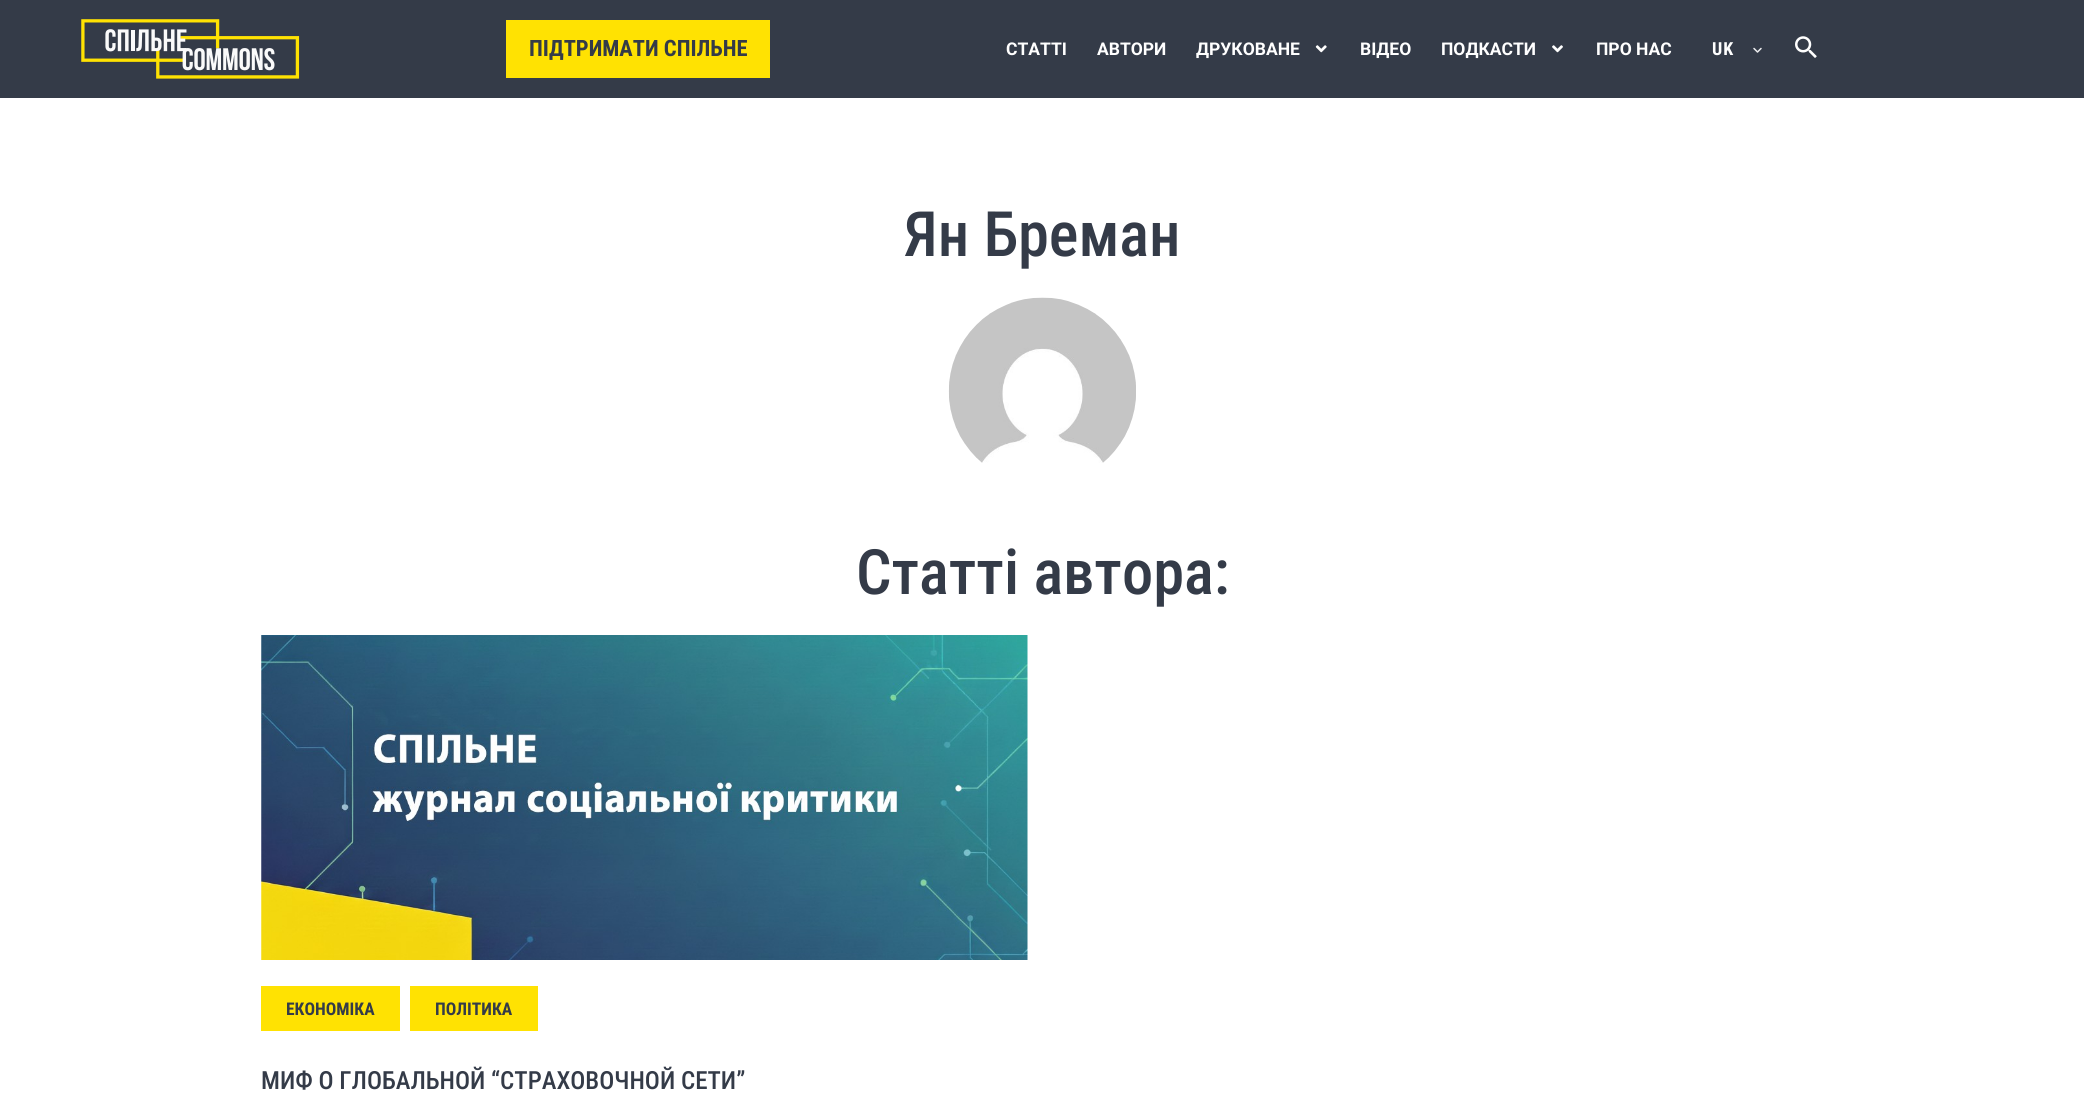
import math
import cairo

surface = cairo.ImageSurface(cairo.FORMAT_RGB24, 2084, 1119)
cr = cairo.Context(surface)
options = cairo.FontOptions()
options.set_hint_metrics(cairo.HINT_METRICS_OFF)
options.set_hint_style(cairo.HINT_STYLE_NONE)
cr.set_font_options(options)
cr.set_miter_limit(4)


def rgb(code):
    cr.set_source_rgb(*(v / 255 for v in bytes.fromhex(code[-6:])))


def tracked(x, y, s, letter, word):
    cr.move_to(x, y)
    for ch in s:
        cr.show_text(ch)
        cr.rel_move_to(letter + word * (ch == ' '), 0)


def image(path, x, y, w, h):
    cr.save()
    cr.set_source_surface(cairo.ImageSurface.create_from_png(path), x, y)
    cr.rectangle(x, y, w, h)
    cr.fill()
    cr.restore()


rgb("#ffffff")
cr.paint()
rgb("#343b48")
cr.rectangle(0, 0, 2084, 98)
cr.fill()
image("img/1.png", 81, 19, 219, 60)
rgb("#ffe202")
cr.rectangle(506, 20, 264, 58)
cr.fill()
image("img/2.png", 1315, 45, 12, 8)
image("img/3.png", 1552, 45, 11, 8)
cr.new_path()
cr.move_to(1754, 48.5)
cr.line_to(1757.5, 52)
cr.line_to(1761, 48.5)
rgb("#ebebed")
cr.set_line_width(1.5)
cr.set_line_cap(cairo.LINE_CAP_ROUND)
cr.set_line_join(cairo.LINE_JOIN_ROUND)
cr.stroke()
image("img/4.png", 1795, 36, 22, 22)
image("img/5.png", 948, 297, 188, 166)
image("img/6.png", 261, 635, 767, 325)
rgb("#ffe202")
cr.rectangle(261, 986, 139, 45)
cr.fill()
cr.rectangle(410, 986, 128, 45)
cr.fill()
cr.select_font_face("Roboto Condensed", cairo.FONT_SLANT_NORMAL, cairo.FONT_WEIGHT_BOLD)
cr.set_font_size(22.5)
rgb("#343b48")
cr.move_to(529, 56)
cr.show_text("ПІДТРИМАТИ СПІЛЬНЕ")
cr.select_font_face("Roboto", cairo.FONT_SLANT_NORMAL, cairo.FONT_WEIGHT_BOLD)
cr.set_font_size(17.5)
rgb("#ffffff")
for x, y, s in [
    (1006, 55, "СТАТТІ"),
    (1097, 55, "АВТОРИ"),
    (1196, 55, "ДРУКОВАНЕ"),
    (1360, 55, "ВІДЕО"),
    (1441, 55, "ПОДКАСТИ"),
    (1596, 55, "ПРО НАС"),
]:
    cr.move_to(x, y)
    cr.show_text(s)
cr.select_font_face("Roboto Condensed", cairo.FONT_SLANT_NORMAL, cairo.FONT_WEIGHT_BOLD)
cr.set_font_size(18)
tracked(1712, 55, "UK", 1, 0)
cr.select_font_face("Roboto Condensed Medium")
cr.set_font_size(62.5)
rgb("#343b48")
cr.move_to(904, 256)
cr.show_text("Ян Бреман")
cr.move_to(856, 594)
cr.show_text("Статті автора:")
cr.select_font_face("Roboto Condensed", cairo.FONT_SLANT_NORMAL, cairo.FONT_WEIGHT_BOLD)
cr.set_font_size(17.5)
cr.move_to(286, 1015)
cr.show_text("ЕКОНОМІКА")
cr.move_to(435, 1015)
cr.show_text("ПОЛІТИКА")
cr.select_font_face("Roboto Condensed Medium")
cr.set_font_size(25)
cr.move_to(261, 1089)
cr.show_text("МИФ О ГЛОБАЛЬНОЙ “СТРАХОВОЧНОЙ СЕТИ”")
surface.write_to_png("page.png")
